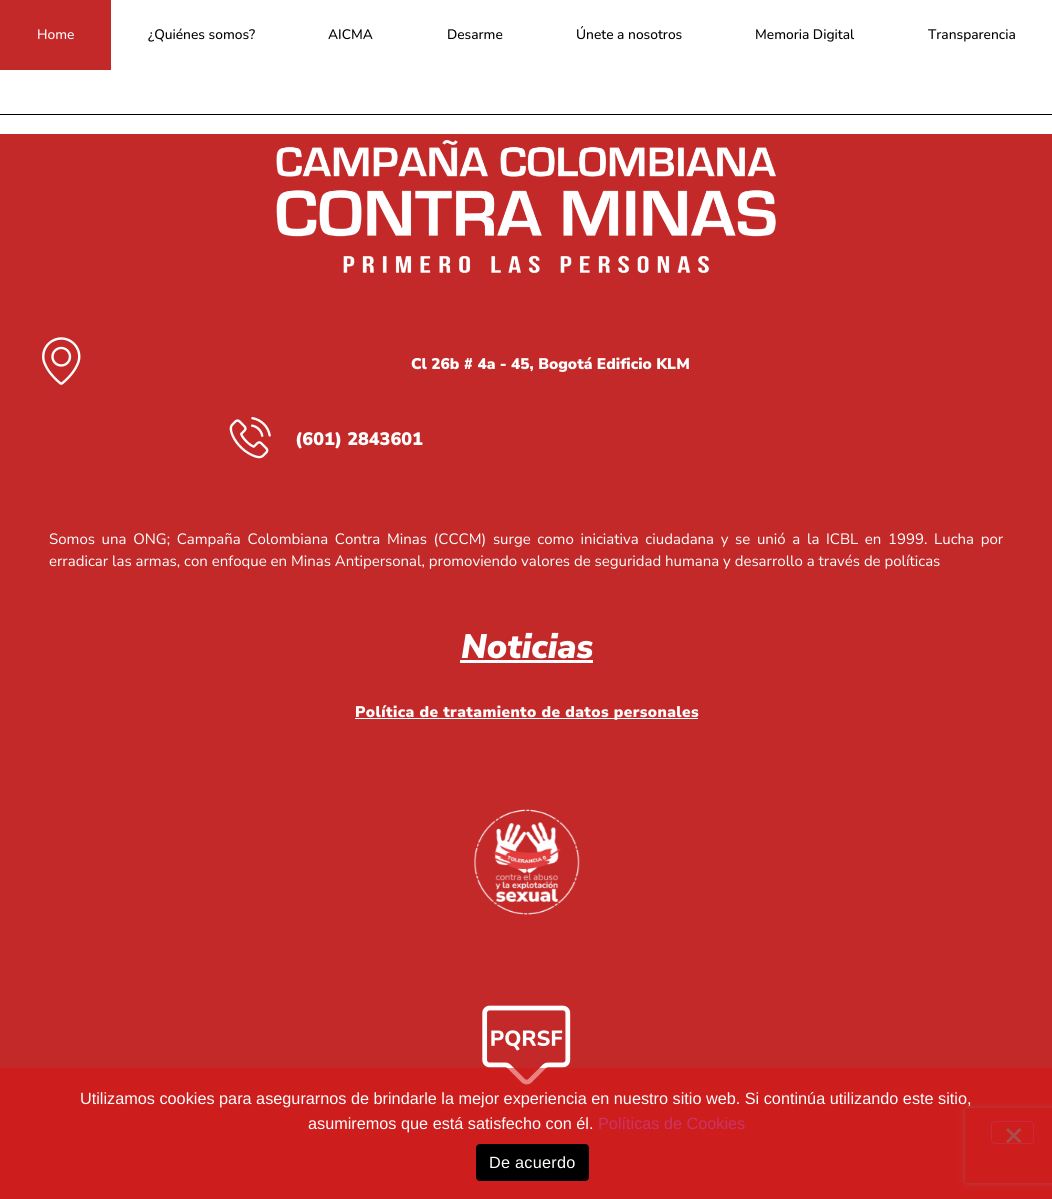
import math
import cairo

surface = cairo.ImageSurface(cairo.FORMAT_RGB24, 1052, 1199)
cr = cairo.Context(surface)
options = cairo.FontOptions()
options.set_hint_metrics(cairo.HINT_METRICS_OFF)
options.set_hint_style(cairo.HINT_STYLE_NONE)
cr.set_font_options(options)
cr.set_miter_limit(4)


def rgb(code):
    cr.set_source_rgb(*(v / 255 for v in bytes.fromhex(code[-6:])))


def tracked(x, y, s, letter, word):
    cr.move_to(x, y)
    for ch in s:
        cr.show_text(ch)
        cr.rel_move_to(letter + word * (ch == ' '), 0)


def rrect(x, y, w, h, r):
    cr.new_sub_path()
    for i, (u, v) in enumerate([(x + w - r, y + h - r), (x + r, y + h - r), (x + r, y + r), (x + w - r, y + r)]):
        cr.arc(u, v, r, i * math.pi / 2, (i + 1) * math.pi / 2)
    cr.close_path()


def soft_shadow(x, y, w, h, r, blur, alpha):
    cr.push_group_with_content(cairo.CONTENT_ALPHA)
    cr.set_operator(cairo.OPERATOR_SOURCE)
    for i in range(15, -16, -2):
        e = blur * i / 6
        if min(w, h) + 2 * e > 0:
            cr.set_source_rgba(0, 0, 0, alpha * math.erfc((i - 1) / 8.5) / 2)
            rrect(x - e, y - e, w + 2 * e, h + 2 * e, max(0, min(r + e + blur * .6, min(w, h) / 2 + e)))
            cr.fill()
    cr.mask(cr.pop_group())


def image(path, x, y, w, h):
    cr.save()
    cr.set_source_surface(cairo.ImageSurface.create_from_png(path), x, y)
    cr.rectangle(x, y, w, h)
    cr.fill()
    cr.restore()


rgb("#c42929")
cr.paint()
for x, y, w, h, color in [
    (0, 0, 1052, 134, "#ffffff"),
    (0, 0, 111, 70, "#c42929"),
    (0, 114, 1052, 1, "#000000"),
]:
    rgb(color)
    cr.rectangle(x, y, w, h)
    cr.fill()
image("img/1.png", 276, 139, 500, 134)
image("img/2.png", 42, 337, 39, 48)
image("img/3.png", 229, 417, 42, 42)
rgb("#ffffff")
cr.rectangle(460, 660, 133, 3)
cr.fill()
cr.rectangle(355, 718, 343, 1)
cr.fill()
image("img/4.png", 474, 809, 106, 106)
image("img/5.png", 482, 1005, 89, 80)
cr.save()
cr.set_fill_rule(cairo.FILL_RULE_EVEN_ODD)
cr.new_path()
cr.move_to(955, 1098)
cr.line_to(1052, 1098)
cr.line_to(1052, 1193)
cr.line_to(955, 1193)
cr.close_path()
cr.move_to(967.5, 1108)
cr.line_to(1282.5, 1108)
cr.curve_to(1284, 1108, 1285, 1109, 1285, 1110.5)
cr.line_to(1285, 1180.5)
cr.curve_to(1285, 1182, 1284, 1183, 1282.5, 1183)
cr.line_to(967.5, 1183)
cr.curve_to(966, 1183, 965, 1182, 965, 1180.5)
cr.line_to(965, 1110.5)
cr.curve_to(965, 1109, 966, 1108, 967.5, 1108)
cr.close_path()
cr.clip()
rgb("#808080")
soft_shadow(965, 1108, 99, 75, 2.5, 3, 1)
cr.restore()
cr.set_source_rgba(0.847, 0.075, 0.075, 0.53)
cr.rectangle(0, 1068, 1052, 131)
cr.fill()
rrect(991.5, 1121.5, 42, 22, 3.5)
rgb("#cd2842")
cr.set_line_width(1)
cr.stroke()
rgb("#a74f4f")
cr.new_path()
cr.move_to(1019.5, 1128)
cr.line_to(1021.5, 1130)
cr.line_to(1008, 1143)
cr.line_to(1006, 1141.5)
cr.close_path()
cr.fill()
cr.new_path()
cr.move_to(1006, 1130)
cr.line_to(1008, 1128)
cr.line_to(1021.5, 1141.5)
cr.line_to(1019.5, 1143)
cr.close_path()
cr.fill()
rgb("#000000")
rrect(476, 1144, 113, 37, 4)
cr.fill()
cr.select_font_face("Nunito Medium")
cr.set_font_size(13.75)
rgb("#fefefe")
cr.move_to(37, 39)
cr.show_text("Home")
rgb("#000000")
for x, y, s in [
    (148, 39, "¿Quiénes somos?"),
    (328, 39, "AICMA"),
    (447, 39, "Desarme"),
    (576, 39, "Únete a nosotros"),
    (755, 39, "Memoria Digital"),
    (928, 39, "Transparencia"),
]:
    cr.move_to(x, y)
    cr.show_text(s)
cr.select_font_face("Nunito Sans Black")
cr.set_font_size(15.4)
rgb("#fefefe")
cr.move_to(411, 369)
cr.show_text("Cl 26b # 4a - 45, Bogotá Edificio KLM")
cr.set_font_size(18)
cr.move_to(295, 445)
cr.show_text("(601) 2843601")
cr.select_font_face("Nunito Sans")
cr.set_font_size(15)
tracked(49, 544, "Somos una ONG; Campaña Colombiana Contra Minas (CCCM) surge como iniciativa ciudadana y se unió a la ICBL en 1999. Lucha por", 0, 2.8)
cr.move_to(49, 566)
cr.show_text("erradicar las armas, con enfoque en Minas Antipersonal, promoviendo valores de seguridad humana y desarrollo a través de políticas")
cr.select_font_face("Nunito Sans Black", cairo.FONT_SLANT_ITALIC)
cr.set_font_size(34)
cr.move_to(461, 658)
cr.show_text("Noticias")
cr.select_font_face("Nunito Sans Black")
cr.set_font_size(15.4)
tracked(355, 717, "Política de tratamiento de datos personales", 0.4, 0)
cr.select_font_face("Liberation Sans")
cr.set_font_size(16.25)
cr.move_to(80, 1104)
cr.show_text("Utilizamos cookies para asegurarnos de brindarle la mejor experiencia en nuestro sitio web. Si continúa utilizando este sitio,")
cr.move_to(308, 1129)
cr.show_text("asumiremos que está satisfecho con él.")
rgb("#cc3366")
cr.move_to(598, 1129)
cr.show_text("Políticas de Cookies")
rgb("#fefefe")
tracked(489, 1168, "De acuerdo", 0.25, 0)
surface.write_to_png("page.png")
